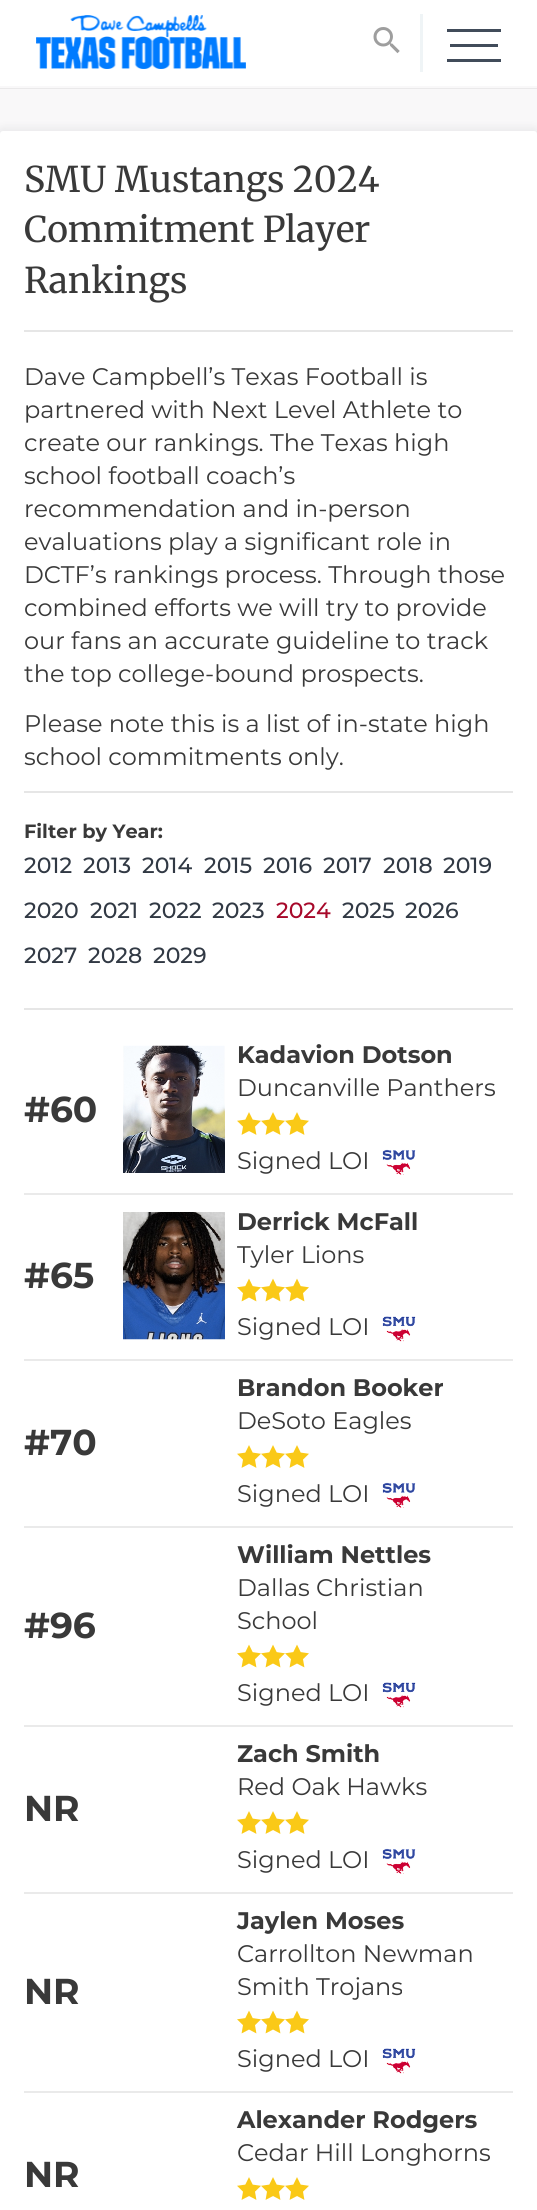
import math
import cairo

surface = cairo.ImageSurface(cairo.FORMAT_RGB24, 537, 2210)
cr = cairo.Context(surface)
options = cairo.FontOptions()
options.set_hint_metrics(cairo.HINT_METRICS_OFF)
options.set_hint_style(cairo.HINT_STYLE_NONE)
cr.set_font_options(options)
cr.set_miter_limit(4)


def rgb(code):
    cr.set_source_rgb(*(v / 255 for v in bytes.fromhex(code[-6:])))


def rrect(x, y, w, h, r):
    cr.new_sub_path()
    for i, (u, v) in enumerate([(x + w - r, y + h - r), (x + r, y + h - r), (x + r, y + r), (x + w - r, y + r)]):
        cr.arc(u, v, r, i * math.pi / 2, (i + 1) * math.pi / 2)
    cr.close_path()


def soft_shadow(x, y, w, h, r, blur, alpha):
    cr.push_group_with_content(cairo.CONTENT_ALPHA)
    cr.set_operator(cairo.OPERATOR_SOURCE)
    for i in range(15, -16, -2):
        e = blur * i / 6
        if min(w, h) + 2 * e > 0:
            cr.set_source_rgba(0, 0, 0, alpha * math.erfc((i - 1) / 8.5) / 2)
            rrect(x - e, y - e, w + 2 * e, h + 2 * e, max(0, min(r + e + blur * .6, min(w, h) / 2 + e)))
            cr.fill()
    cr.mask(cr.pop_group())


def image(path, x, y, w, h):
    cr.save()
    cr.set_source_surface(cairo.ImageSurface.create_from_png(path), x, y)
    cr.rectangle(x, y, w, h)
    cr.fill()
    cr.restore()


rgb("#f9f8f9")
cr.paint()
rgb("#eae9ea")
cr.rectangle(0, 88, 537, 1)
cr.fill()
rgb("#ffffff")
cr.rectangle(0, 0, 537, 86)
cr.fill()
image("img/1.png", 36, 15, 210, 54)
image("img/2.png", 373, 27, 27, 27)
for x, y, w, h, color in [
    (420, 14, 3, 58, "#eff4f6"),
    (447, 29, 54, 3, "#414c5a"),
    (450, 44, 48, 3, "#414c5a"),
    (447, 59, 54, 3, "#414c5a"),
]:
    rgb(color)
    cr.rectangle(x, y, w, h)
    cr.fill()
rgb("#313944")
soft_shadow(-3, 128, 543, 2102, 6, 4.5, 0.08)
rgb("#ffffff")
rrect(0, 131, 537, 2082, 3)
cr.fill()
for x, y, w, h, color in [
    (24, 330, 489, 2, "#e6e6e6"),
    (24, 791, 489, 2, "#e6e6e6"),
    (24, 1008, 489, 2, "#e6e6e6"),
    (24, 1193, 489, 2, "#eaeaea"),
]:
    rgb(color)
    cr.rectangle(x, y, w, h)
    cr.fill()
image("img/3.png", 123, 1045, 102, 128)
image("img/4.png", 237, 1112, 24, 23)
image("img/4.png", 261, 1112, 24, 23)
image("img/4.png", 285, 1112, 24, 23)
image("img/5.png", 382, 1149, 34, 26)
cr.rectangle(24, 1359, 489, 2)
cr.fill()
image("img/6.png", 123, 1212, 102, 128)
image("img/7.png", 237, 1278, 24, 24)
image("img/7.png", 261, 1278, 24, 24)
image("img/7.png", 285, 1278, 24, 24)
image("img/8.png", 382, 1316, 34, 26)
cr.rectangle(24, 1526, 489, 2)
cr.fill()
image("img/4.png", 237, 1445, 24, 23)
image("img/4.png", 261, 1445, 24, 23)
image("img/4.png", 285, 1445, 24, 23)
image("img/5.png", 382, 1482, 34, 26)
cr.rectangle(24, 1725, 489, 2)
cr.fill()
image("img/7.png", 237, 1644, 24, 24)
image("img/7.png", 261, 1644, 24, 24)
image("img/7.png", 285, 1644, 24, 24)
image("img/8.png", 382, 1682, 34, 26)
cr.rectangle(24, 1892, 489, 2)
cr.fill()
image("img/4.png", 237, 1811, 24, 23)
image("img/4.png", 261, 1811, 24, 23)
image("img/4.png", 285, 1811, 24, 23)
image("img/5.png", 382, 1848, 34, 26)
cr.rectangle(24, 2091, 489, 2)
cr.fill()
image("img/7.png", 237, 2010, 24, 24)
image("img/7.png", 261, 2010, 24, 24)
image("img/7.png", 285, 2010, 24, 24)
image("img/8.png", 382, 2048, 34, 26)
image("img/4.png", 237, 2177, 24, 23)
image("img/4.png", 261, 2177, 24, 23)
image("img/4.png", 285, 2177, 24, 23)
cr.select_font_face("Merriweather")
cr.set_font_size(35.4)
rgb("#393939")
for x, y, s in [
    (24, 192, "SMU Mustangs 2024"),
    (24, 242, "Commitment Player"),
    (24, 293, "Rankings"),
]:
    cr.move_to(x, y)
    cr.show_text(s)
cr.select_font_face("Montserrat")
cr.set_font_size(24)
for x, y, s in [
    (24, 385, "Dave Campbell’s Texas Football is"),
    (24, 418, "partnered with Next Level Athlete to"),
    (24, 451, "create our rankings. The Texas high"),
    (24, 484, "school football coach’s"),
    (24, 517, "recommendation and in-person"),
    (24, 550, "evaluations play a significant role in"),
    (24, 583, "DCTF’s rankings process. Through those"),
    (24, 616, "combined efforts we will try to provide"),
    (24, 649, "our fans an accurate guideline to track"),
    (24, 682, "the top college-bound prospects."),
    (24, 732, "Please note this is a list of in-state high"),
    (24, 765, "school commitments only."),
]:
    cr.move_to(x, y)
    cr.show_text(s)
cr.select_font_face("Montserrat", cairo.FONT_SLANT_NORMAL, cairo.FONT_WEIGHT_BOLD)
cr.set_font_size(19.25)
cr.move_to(24, 838)
cr.show_text("Filter by Year:")
cr.select_font_face("Montserrat Medium")
cr.set_font_size(22)
rgb("#313944")
for x, y, s in [
    (24, 873, "2012"),
    (83, 873, "2013"),
    (142, 873, "2014"),
    (204, 873, "2015"),
    (263, 873, "2016"),
    (323, 873, "2017"),
    (383, 873, "2018"),
    (443, 873, "2019"),
    (24, 918, "2020"),
    (90, 918, "2021"),
    (149, 918, "2022"),
    (212, 918, "2023"),
]:
    cr.move_to(x, y)
    cr.show_text(s)
rgb("#a7092a")
cr.move_to(276, 918)
cr.show_text("2024")
rgb("#313944")
for x, y, s in [
    (342, 918, "2025"),
    (405, 918, "2026"),
    (24, 963, "2027"),
    (88, 963, "2028"),
    (153, 963, "2029"),
]:
    cr.move_to(x, y)
    cr.show_text(s)
cr.select_font_face("Montserrat", cairo.FONT_SLANT_NORMAL, cairo.FONT_WEIGHT_BOLD)
cr.set_font_size(36)
rgb("#393939")
cr.move_to(24, 1122)
cr.show_text("#60")
cr.set_font_size(24)
cr.move_to(237, 1063)
cr.show_text("Kadavion Dotson")
cr.select_font_face("Montserrat")
cr.move_to(237, 1096)
cr.show_text("Duncanville Panthers")
cr.move_to(237, 1169)
cr.show_text("Signed LOI")
cr.select_font_face("Montserrat", cairo.FONT_SLANT_NORMAL, cairo.FONT_WEIGHT_BOLD)
cr.set_font_size(36)
cr.move_to(24, 1288)
cr.show_text("#65")
cr.set_font_size(24)
cr.move_to(237, 1230)
cr.show_text("Derrick McFall")
cr.select_font_face("Montserrat")
cr.move_to(237, 1263)
cr.show_text("Tyler Lions")
cr.move_to(237, 1335)
cr.show_text("Signed LOI")
cr.select_font_face("Montserrat", cairo.FONT_SLANT_NORMAL, cairo.FONT_WEIGHT_BOLD)
cr.set_font_size(36)
cr.move_to(24, 1455)
cr.show_text("#70")
cr.set_font_size(24)
cr.move_to(237, 1396)
cr.show_text("Brandon Booker")
cr.select_font_face("Montserrat")
cr.move_to(237, 1429)
cr.show_text("DeSoto Eagles")
cr.move_to(237, 1502)
cr.show_text("Signed LOI")
cr.select_font_face("Montserrat", cairo.FONT_SLANT_NORMAL, cairo.FONT_WEIGHT_BOLD)
cr.set_font_size(36)
cr.move_to(24, 1638)
cr.show_text("#96")
cr.set_font_size(24)
cr.move_to(237, 1563)
cr.show_text("William Nettles")
cr.select_font_face("Montserrat")
for x, y, s in [
    (237, 1596, "Dallas Christian"),
    (237, 1629, "School"),
    (237, 1701, "Signed LOI"),
]:
    cr.move_to(x, y)
    cr.show_text(s)
cr.select_font_face("Montserrat", cairo.FONT_SLANT_NORMAL, cairo.FONT_WEIGHT_BOLD)
cr.set_font_size(36)
cr.move_to(24, 1821)
cr.show_text("NR")
cr.set_font_size(24)
cr.move_to(237, 1762)
cr.show_text("Zach Smith")
cr.select_font_face("Montserrat")
cr.move_to(237, 1795)
cr.show_text("Red Oak Hawks")
cr.move_to(237, 1868)
cr.show_text("Signed LOI")
cr.select_font_face("Montserrat", cairo.FONT_SLANT_NORMAL, cairo.FONT_WEIGHT_BOLD)
cr.set_font_size(36)
cr.move_to(24, 2004)
cr.show_text("NR")
cr.set_font_size(24)
cr.move_to(237, 1929)
cr.show_text("Jaylen Moses")
cr.select_font_face("Montserrat")
for x, y, s in [
    (237, 1962, "Carrollton Newman"),
    (237, 1995, "Smith Trojans"),
    (237, 2067, "Signed LOI"),
]:
    cr.move_to(x, y)
    cr.show_text(s)
cr.select_font_face("Montserrat", cairo.FONT_SLANT_NORMAL, cairo.FONT_WEIGHT_BOLD)
cr.move_to(237, 2128)
cr.show_text("Alexander Rodgers")
cr.select_font_face("Montserrat")
cr.move_to(237, 2161)
cr.show_text("Cedar Hill Longhorns")
cr.select_font_face("Montserrat", cairo.FONT_SLANT_NORMAL, cairo.FONT_WEIGHT_BOLD)
cr.set_font_size(36)
cr.move_to(24, 2187)
cr.show_text("NR")
surface.write_to_png("page.png")
